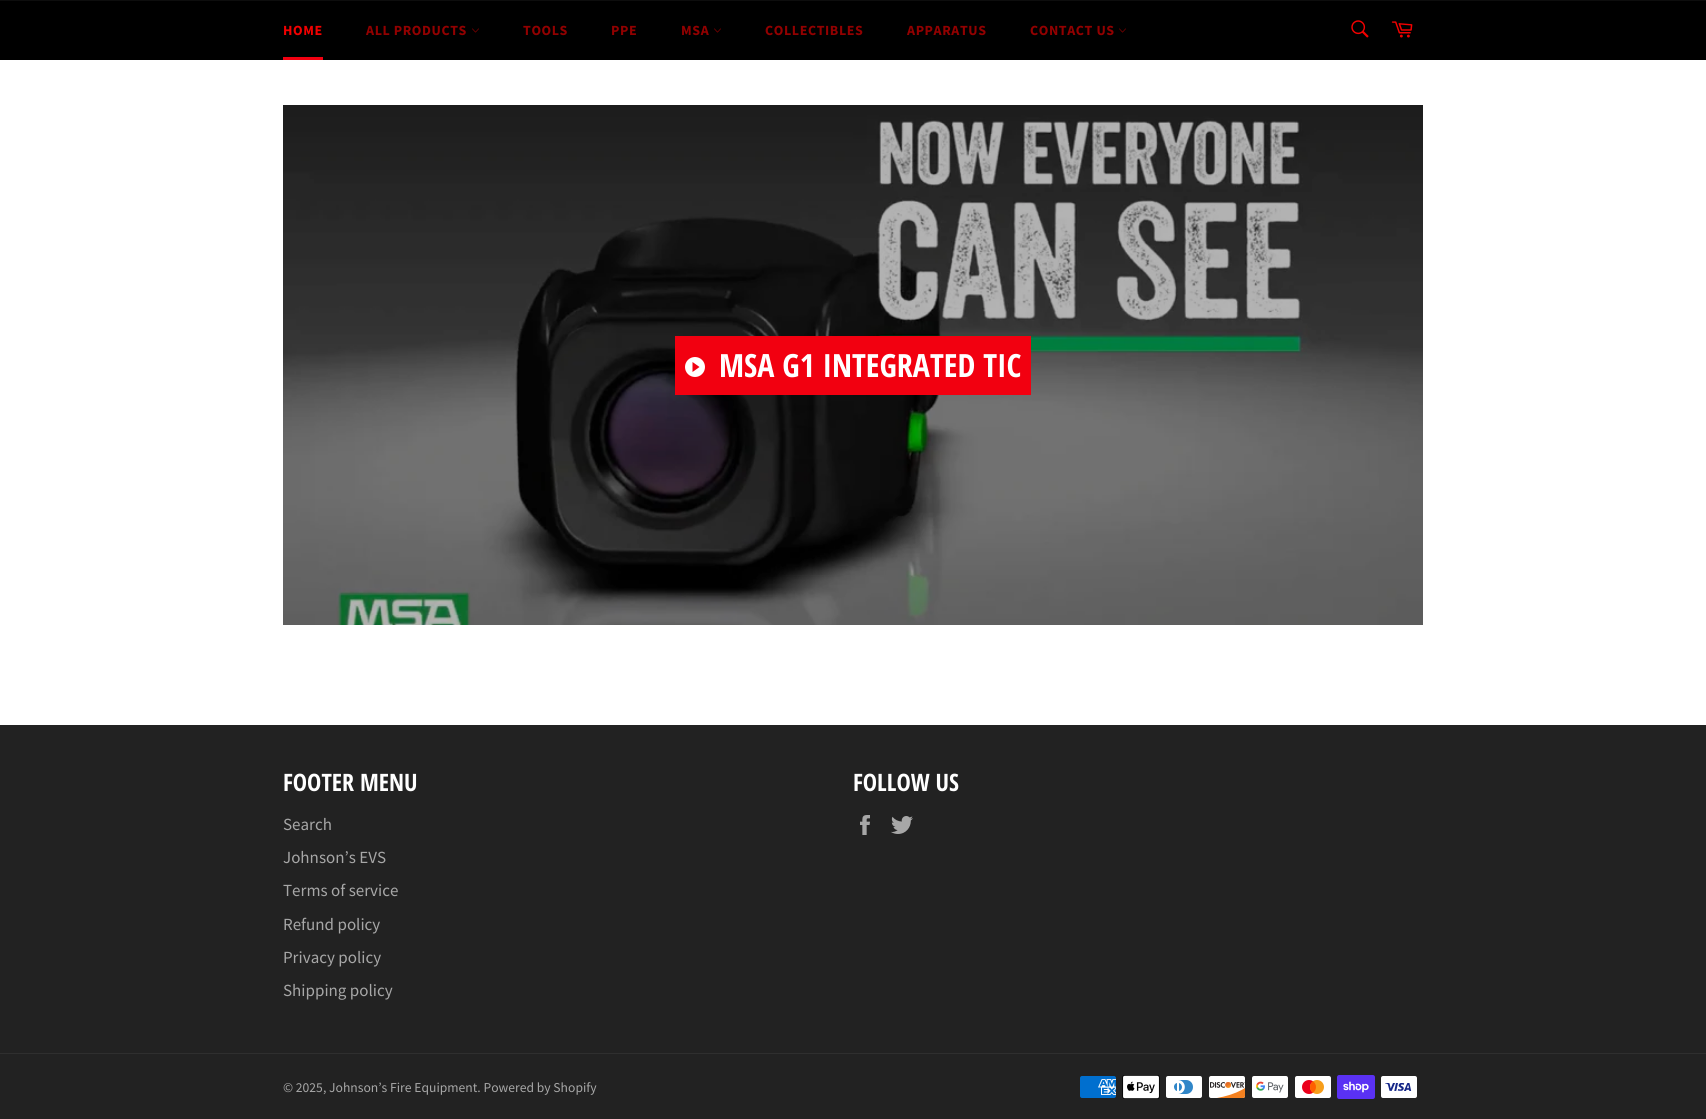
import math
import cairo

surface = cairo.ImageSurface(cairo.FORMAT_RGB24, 1706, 1119)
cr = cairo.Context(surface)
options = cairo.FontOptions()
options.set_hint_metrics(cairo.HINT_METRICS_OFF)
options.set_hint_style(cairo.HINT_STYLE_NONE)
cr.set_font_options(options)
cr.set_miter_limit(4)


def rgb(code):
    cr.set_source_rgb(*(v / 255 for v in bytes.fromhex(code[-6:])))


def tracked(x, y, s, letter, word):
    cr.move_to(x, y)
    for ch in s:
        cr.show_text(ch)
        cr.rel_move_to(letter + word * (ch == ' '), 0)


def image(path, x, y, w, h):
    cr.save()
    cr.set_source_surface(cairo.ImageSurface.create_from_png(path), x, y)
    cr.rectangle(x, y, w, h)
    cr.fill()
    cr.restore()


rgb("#ffffff")
cr.paint()
for x, y, w, h, color in [
    (0, 1, 1706, 59, "#000000"),
    (0, 0, 1706, 1, "#0d0d0d"),
    (283, 57, 40, 3, "#f20010"),
]:
    rgb(color)
    cr.rectangle(x, y, w, h)
    cr.fill()
image("img/1.png", 472, 28, 7, 5)
image("img/1.png", 714, 28, 7, 5)
image("img/1.png", 1119, 28, 7, 5)
image("img/2.png", 1351, 20, 18, 18)
image("img/3.png", 1391, 21, 22, 17)
image("img/4.png", 283, 105, 1140, 520)
cr.rectangle(675, 336, 356, 59)
cr.fill()
rgb("#ffffff")
cr.arc(695, 367, 10, 0, 2 * math.pi)
cr.fill()
rgb("#f20010")
cr.new_path()
cr.move_to(692.5, 372)
cr.line_to(692.5, 362)
cr.line_to(699.5, 367)
cr.close_path()
cr.fill()
rgb("#222222")
cr.rectangle(0, 725, 1706, 394)
cr.fill()
image("img/5.png", 860, 815, 10, 20)
image("img/6.png", 891, 816, 22, 18)
rgb("#2f2f2f")
cr.rectangle(0, 1053, 1706, 1)
cr.fill()
image("img/7.png", 1080, 1076, 36, 22)
image("img/8.png", 1122, 1075, 38, 24)
image("img/9.png", 1166, 1076, 36, 22)
image("img/10.png", 1209, 1076, 36, 22)
image("img/11.png", 1252, 1076, 36, 22)
image("img/12.png", 1295, 1076, 36, 22)
image("img/13.png", 1337, 1075, 38, 24)
image("img/14.png", 1381, 1076, 36, 22)
cr.select_font_face("Source Sans Pro", cairo.FONT_SLANT_NORMAL, cairo.FONT_WEIGHT_BOLD)
cr.set_font_size(14)
rgb("#f30000")
tracked(283, 35, "HOME", 0.6, 0)
rgb("#920000")
for x, y, s in [
    (366, 35, "ALL PRODUCTS"),
    (523, 35, "TOOLS"),
    (611, 35, "PPE"),
    (681, 35, "MSA"),
    (765, 35, "COLLECTIBLES"),
    (907, 35, "APPARATUS"),
    (1030, 35, "CONTACT US"),
]:
    tracked(x, y, s, 0.6, 0)
cr.select_font_face("Open Sans Condensed", cairo.FONT_SLANT_NORMAL, cairo.FONT_WEIGHT_BOLD)
cr.set_font_size(32)
rgb("#ffffff")
cr.move_to(719, 377)
cr.show_text("MSA G1 INTEGRATED TIC")
cr.set_font_size(24)
cr.move_to(283, 791)
cr.show_text("FOOTER MENU")
cr.select_font_face("Source Sans Pro")
cr.set_font_size(17)
rgb("#a7a7a7")
for x, y, s in [
    (283, 830, "Search"),
    (283, 863, "Johnson’s EVS"),
    (283, 896, "Terms of service"),
    (283, 930, "Refund policy"),
    (283, 963, "Privacy policy"),
    (283, 996, "Shipping policy"),
]:
    cr.move_to(x, y)
    cr.show_text(s)
cr.select_font_face("Open Sans Condensed", cairo.FONT_SLANT_NORMAL, cairo.FONT_WEIGHT_BOLD)
cr.set_font_size(24)
rgb("#ffffff")
cr.move_to(853, 791)
cr.show_text("FOLLOW US")
cr.select_font_face("Source Sans Pro")
cr.set_font_size(13.6)
rgb("#a7a7a7")
cr.move_to(283, 1092)
cr.show_text("© 2025, Johnson’s Fire Equipment. Powered by Shopify")
surface.write_to_png("page.png")
